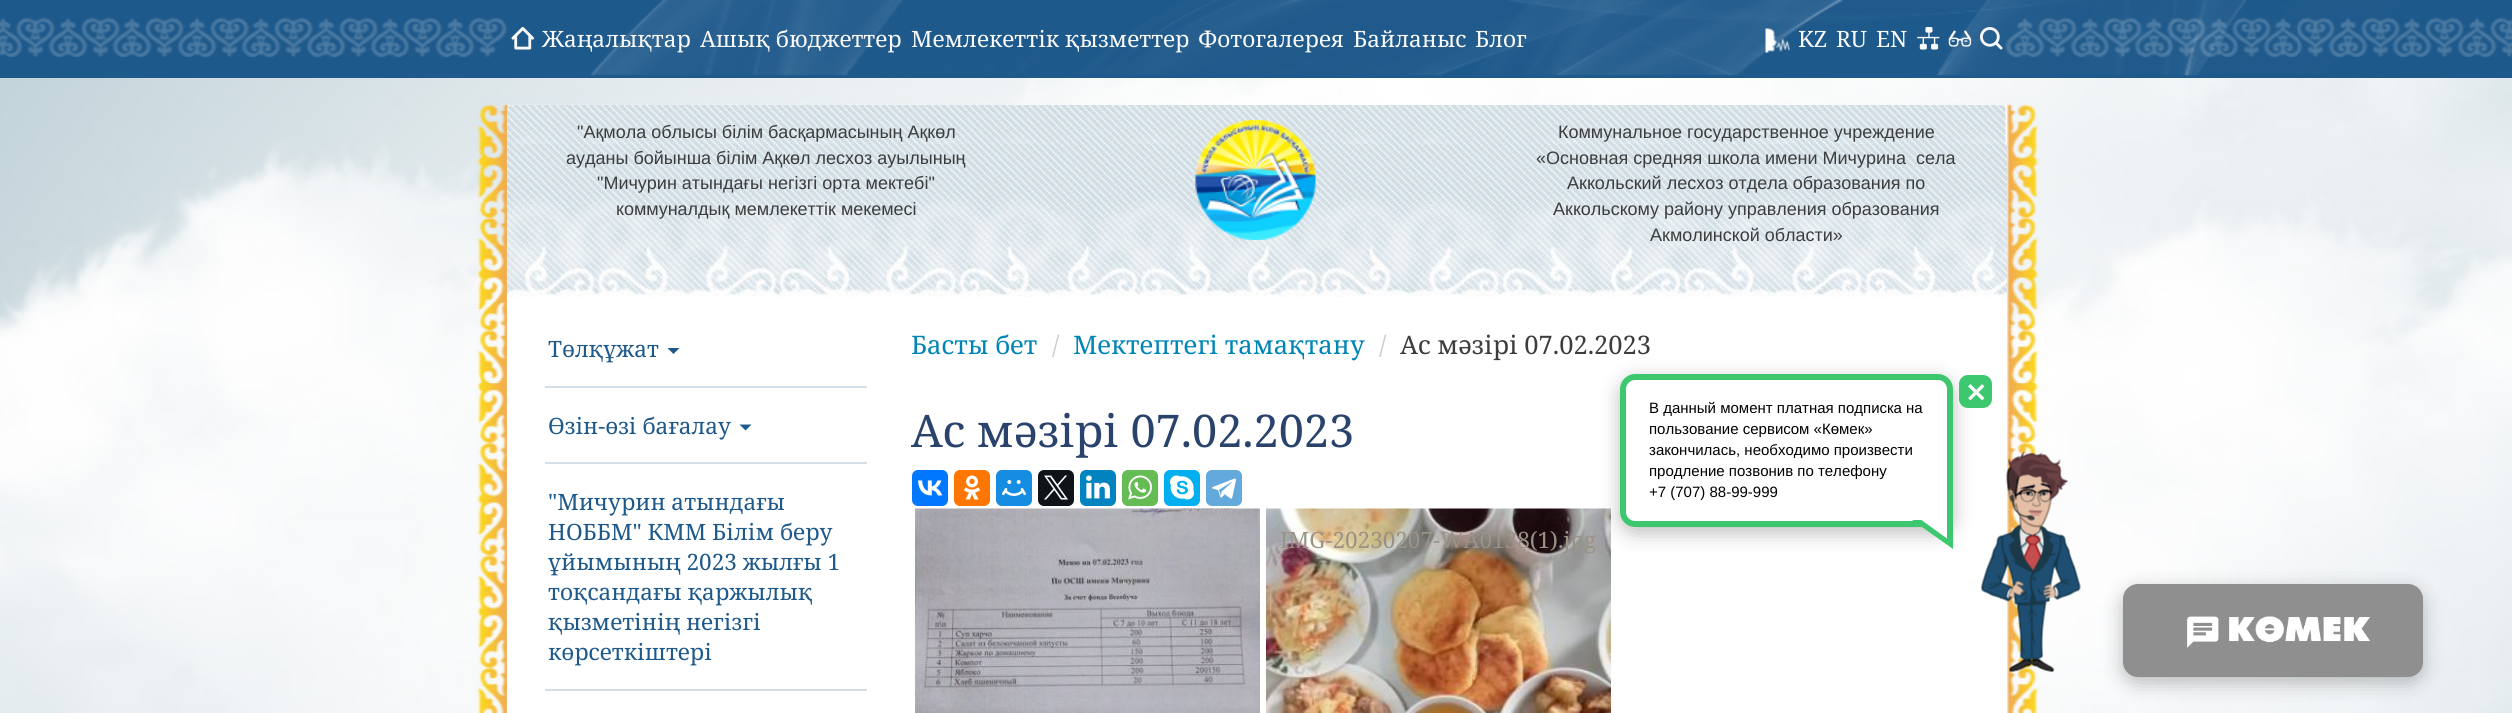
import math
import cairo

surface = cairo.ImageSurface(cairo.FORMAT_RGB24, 2512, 713)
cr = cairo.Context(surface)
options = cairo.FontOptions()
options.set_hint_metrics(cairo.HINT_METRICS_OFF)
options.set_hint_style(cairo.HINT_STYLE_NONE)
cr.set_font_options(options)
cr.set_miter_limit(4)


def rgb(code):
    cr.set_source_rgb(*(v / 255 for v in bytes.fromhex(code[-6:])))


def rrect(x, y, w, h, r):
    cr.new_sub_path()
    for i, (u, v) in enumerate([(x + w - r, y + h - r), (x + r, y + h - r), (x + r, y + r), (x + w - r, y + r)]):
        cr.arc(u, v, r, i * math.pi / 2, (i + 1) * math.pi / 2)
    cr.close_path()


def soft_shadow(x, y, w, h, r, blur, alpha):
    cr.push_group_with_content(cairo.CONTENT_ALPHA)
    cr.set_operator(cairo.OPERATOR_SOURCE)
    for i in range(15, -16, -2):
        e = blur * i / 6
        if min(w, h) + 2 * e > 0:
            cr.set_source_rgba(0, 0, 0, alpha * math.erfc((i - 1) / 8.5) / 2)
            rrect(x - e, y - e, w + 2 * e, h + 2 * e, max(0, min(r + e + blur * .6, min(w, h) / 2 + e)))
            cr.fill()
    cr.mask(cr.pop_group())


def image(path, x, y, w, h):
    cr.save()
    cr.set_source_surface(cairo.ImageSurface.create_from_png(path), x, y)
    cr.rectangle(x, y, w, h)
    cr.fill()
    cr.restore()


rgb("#ffffff")
cr.paint()
image("img/1.png", 0, 78, 2512, 635)
rgb("#ffffff")
rrect(507, 105, 1500, 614, 6)
cr.fill()
image("img/2.png", 507, 105, 1500, 192)
rgb("#1e598b")
cr.rectangle(0, 0, 2512, 78)
cr.fill()
image("img/3.png", 0, 0, 2512, 76)
image("img/4.png", 511, 27, 23, 23)
image("img/5.png", 1765, 28, 25, 25)
image("img/6.png", 1917, 27, 23, 23)
image("img/7.png", 1948, 30, 24, 17)
image("img/8.png", 1980, 27, 23, 23)
image("img/9.png", 1195, 120, 121, 120)
rgb("#d3dfe9")
cr.rectangle(545, 386, 322, 2)
cr.fill()
rgb("#1e598b")
cr.new_path()
cr.move_to(667.5, 348)
cr.line_to(679.5, 348)
cr.line_to(673.5, 354)
cr.close_path()
cr.fill()
rgb("#d3dfe9")
cr.rectangle(545, 462, 322, 2)
cr.fill()
rgb("#1e598b")
cr.new_path()
cr.move_to(739.5, 424.5)
cr.line_to(751.5, 424.5)
cr.line_to(745.5, 430.5)
cr.close_path()
cr.fill()
rgb("#d3dfe9")
cr.rectangle(545, 689, 322, 2)
cr.fill()
rgb("#0077ff")
rrect(912, 470, 36, 36, 6)
cr.fill()
image("img/10.png", 918, 480, 24, 16)
rgb("#ff7700")
rrect(954, 470, 36, 36, 6)
cr.fill()
image("img/11.png", 964, 475, 16, 25)
rgb("#168de2")
rrect(996, 470, 36, 36, 6)
cr.fill()
image("img/12.png", 1002, 480, 24, 16)
rgb("#0f1419")
rrect(1038, 470, 36, 36, 6)
cr.fill()
image("img/13.png", 1044, 475, 24, 25)
rgb("#0083be")
rrect(1080, 470, 36, 36, 6)
cr.fill()
image("img/14.png", 1086, 475, 24, 24)
rgb("#65bc54")
rrect(1122, 470, 36, 36, 6)
cr.fill()
image("img/15.png", 1128, 475, 24, 25)
rgb("#00aff0")
rrect(1164, 470, 36, 36, 6)
cr.fill()
image("img/16.png", 1170, 475, 24, 25)
rgb("#64a9dc")
rrect(1206, 470, 36, 36, 6)
cr.fill()
image("img/17.png", 1212, 478, 24, 21)
image("img/18.png", 915, 508, 345, 205)
image("img/19.png", 1266, 508, 345, 205)
image("img/21.png", 1981, 451, 100, 221)
rgb("#000000")
soft_shadow(1620, 380, 333, 153, 15, 10, 0.26)
rgb("#ffffff")
cr.new_path()
cr.move_to(1635, 377)
cr.line_to(1938, 377)
cr.curve_to(1944.5, 377, 1950, 382.5, 1950, 389)
cr.line_to(1950, 524)
cr.line_to(1635, 524)
cr.curve_to(1628.5, 524, 1623, 518.5, 1623, 512)
cr.line_to(1623, 389)
cr.curve_to(1623, 382.5, 1628.5, 377, 1635, 377)
cr.close_path()
cr.fill_preserve()
rgb("#3dc76f")
cr.set_line_width(6)
cr.stroke()
rrect(1959, 375, 33, 33, 9)
cr.fill()
image("img/20.png", 1968, 384, 17, 17)
cr.new_path()
cr.move_to(1953, 520)
cr.line_to(1953, 549)
cr.line_to(1912, 520)
cr.close_path()
cr.fill()
rgb("#ffffff")
cr.new_path()
cr.move_to(1947, 519)
cr.line_to(1947, 538.5)
cr.line_to(1920, 519)
cr.close_path()
cr.fill()
rgb("#000000")
soft_shadow(2123, 590, 300, 93, 15, 10, 0.26)
rgb("#8f8f8f")
rrect(2123, 584, 300, 93, 15)
cr.fill()
image("img/22.png", 2187, 616, 32, 32)
image("img/23.png", 2229, 616, 141, 27)
cr.select_font_face("Noto Serif")
cr.set_font_size(22.5)
rgb("#f9f9f9")
for x, y, s in [
    (542, 47, "Жаңалықтар"),
    (700, 47, "Ашық бюджеттер"),
    (911, 47, "Мемлекеттік қызметтер"),
    (1198, 47, "Фотогалерея"),
    (1353, 47, "Байланыс"),
    (1475, 47, "Блог"),
    (1798, 47, "KZ"),
    (1836, 47, "RU"),
    (1876, 47, "EN"),
]:
    cr.move_to(x, y)
    cr.show_text(s)
cr.select_font_face("Liberation Sans")
cr.set_font_size(18)
rgb("#3d3d3d")
for x, y, s in [
    (577, 138, "\"Ақмола облысы білім басқармасының Ақкөл"),
    (566, 164, "ауданы бойынша білім Ақкөл лесхоз ауылының"),
    (597, 189, "\"Мичурин атындағы негізгі орта мектебі\""),
    (616, 215, "коммуналдық мемлекеттік мекемесі"),
    (1558, 138, "Коммунальное государственное учреждение"),
    (1536, 164, "«Основная средняя школа имени Мичурина  села"),
    (1567, 189, "Аккольский лесхоз отдела образования по"),
    (1553, 215, "Аккольскому району управления образования"),
    (1650, 241, "Акмолинской области»"),
]:
    cr.move_to(x, y)
    cr.show_text(s)
cr.select_font_face("Noto Serif")
cr.set_font_size(22.5)
rgb("#1e598b")
for x, y, s in [
    (548, 357, "Төлқұжат"),
    (548, 434, "Өзін-өзі бағалау"),
    (548, 510, "\"Мичурин атындағы"),
    (548, 540, "НОББМ\" КММ Білім беру"),
    (548, 570, "ұйымының 2023 жылғы 1"),
    (548, 600, "тоқсандағы қаржылық"),
    (548, 630, "қызметінің негізгі"),
    (548, 660, "көрсеткіштері"),
]:
    cr.move_to(x, y)
    cr.show_text(s)
cr.set_font_size(25.5)
rgb("#0085b7")
cr.move_to(911, 354)
cr.show_text("Басты бет")
rgb("#cccccc")
cr.move_to(1052, 354)
cr.show_text("/")
rgb("#0085b7")
cr.move_to(1073, 354)
cr.show_text("Мектептегі тамақтану")
rgb("#cccccc")
cr.move_to(1379, 354)
cr.show_text("/")
rgb("#3d3d3d")
cr.move_to(1400, 354)
cr.show_text("Ас мәзірі 07.02.2023")
cr.set_font_size(45)
rgb("#29436c")
cr.move_to(911, 447)
cr.show_text("Ас мәзірі 07.02.2023")
cr.set_font_size(22.5)
rgb("#9b9286")
cr.move_to(1280, 548)
cr.show_text("IMG-20230207-WA0138(1).jpg")
cr.select_font_face("Liberation Sans")
cr.set_font_size(15)
rgb("#000000")
for x, y, s in [
    (1649, 413, "В данный момент платная подписка на"),
    (1649, 434, "пользование сервисом «Көмек»"),
    (1649, 455, "закончилась, необходимо произвести"),
    (1649, 476, "продление позвонив по телефону"),
    (1649, 497, "+7 (707) 88-99-999"),
]:
    cr.move_to(x, y)
    cr.show_text(s)
surface.write_to_png("page.png")
